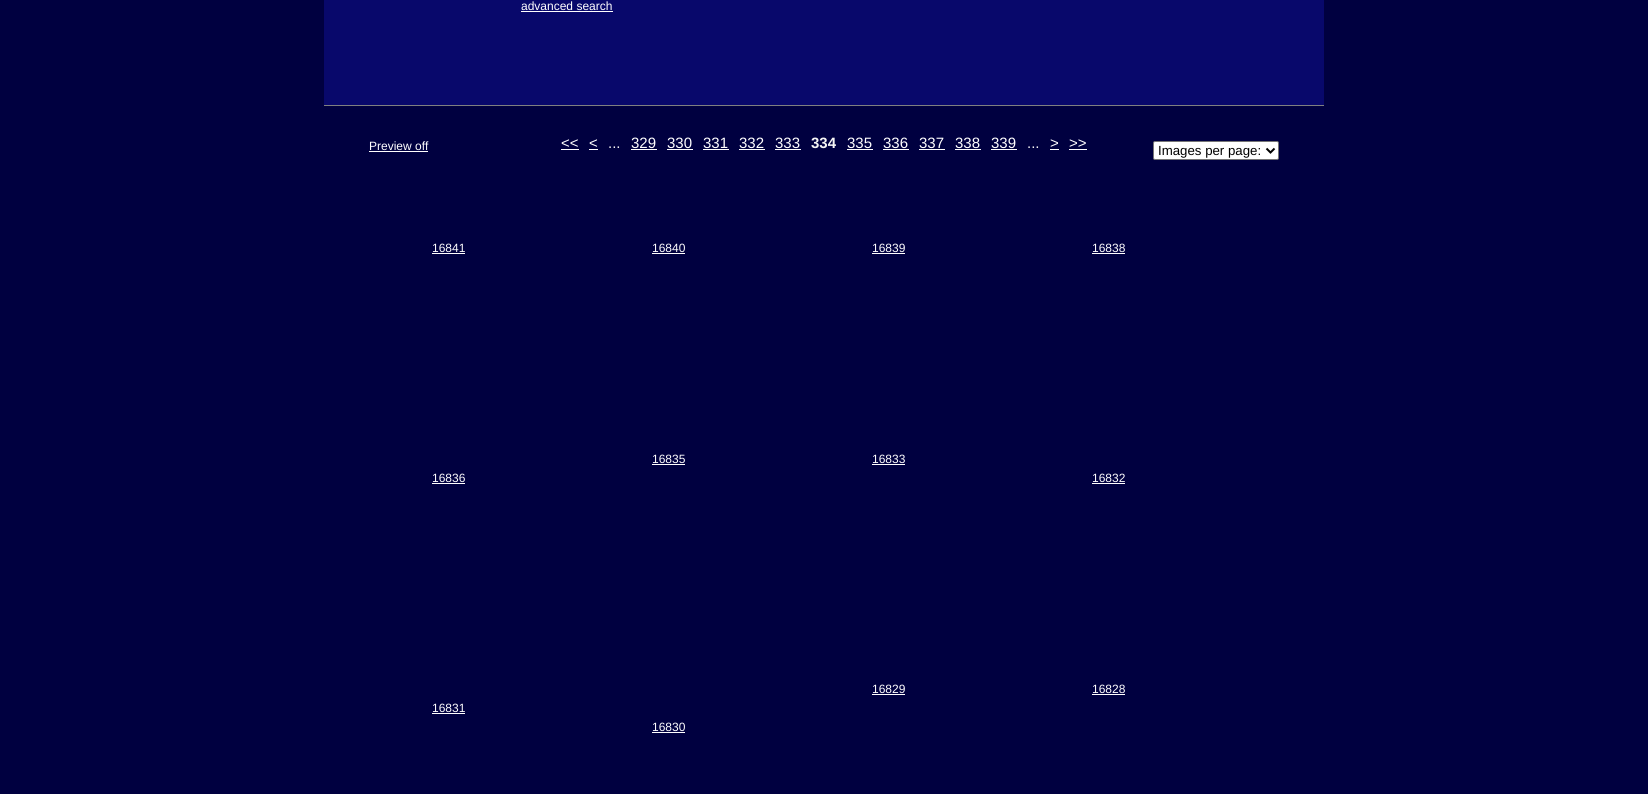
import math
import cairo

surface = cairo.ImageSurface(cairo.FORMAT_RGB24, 1648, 794)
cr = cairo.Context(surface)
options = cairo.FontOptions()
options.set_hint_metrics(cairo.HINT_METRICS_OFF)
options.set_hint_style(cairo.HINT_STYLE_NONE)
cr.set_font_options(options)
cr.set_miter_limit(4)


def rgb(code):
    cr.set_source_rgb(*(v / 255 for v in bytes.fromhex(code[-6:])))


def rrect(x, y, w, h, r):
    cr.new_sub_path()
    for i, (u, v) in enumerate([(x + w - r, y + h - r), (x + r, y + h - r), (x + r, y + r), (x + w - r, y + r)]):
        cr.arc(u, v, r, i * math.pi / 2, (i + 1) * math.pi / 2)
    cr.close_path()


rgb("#000040")
cr.paint()
for x, y, w, h, color in [
    (324, 0, 1000, 105, "#08086b"),
    (324, 105, 1000, 1, "#808080"),
    (521, 11, 92, 1, "#fffeff"),
    (369, 151, 59, 1, "#fffeff"),
    (561, 149, 18, 1, "#fffeff"),
    (589, 149, 9, 1, "#fffeff"),
    (631, 149, 26, 1, "#fffeff"),
    (667, 149, 26, 1, "#fffeff"),
    (703, 149, 26, 1, "#fffeff"),
    (739, 149, 26, 1, "#fffeff"),
    (775, 149, 26, 1, "#fffeff"),
    (847, 149, 26, 1, "#fffeff"),
    (883, 149, 26, 1, "#fffeff"),
    (919, 149, 26, 1, "#fffeff"),
    (955, 149, 26, 1, "#fffeff"),
    (991, 149, 26, 1, "#fffeff"),
    (1050, 149, 9, 1, "#fffeff"),
    (1069, 149, 18, 1, "#fffeff"),
]:
    rgb(color)
    cr.rectangle(x, y, w, h)
    cr.fill()
rgb("#ffffff")
rrect(1153.5, 141.5, 125, 18, 1.5)
cr.fill_preserve()
rgb("#767676")
cr.set_line_width(1)
cr.stroke()
cr.new_path()
cr.move_to(1266.5, 148.5)
cr.line_to(1270.5, 152.5)
cr.line_to(1274.5, 148.5)
rgb("#000000")
cr.set_line_width(2)
cr.stroke()
for x, y, w, h, color in [
    (432, 253, 33, 1, "#fffeff"),
    (652, 253, 33, 1, "#fffeff"),
    (872, 253, 33, 1, "#fffeff"),
    (1092, 253, 33, 1, "#fffeff"),
    (652, 464, 33, 1, "#fffeff"),
    (872, 464, 33, 1, "#fffeff"),
    (432, 483, 33, 1, "#fffeff"),
    (1092, 483, 33, 1, "#fffeff"),
    (872, 694, 33, 1, "#fffeff"),
    (1092, 694, 33, 1, "#fffeff"),
    (432, 713, 33, 1, "#fffeff"),
    (652, 732, 33, 1, "#fffeff"),
]:
    rgb(color)
    cr.rectangle(x, y, w, h)
    cr.fill()
cr.select_font_face("Liberation Sans")
cr.set_font_size(12)
cr.move_to(521, 10)
cr.show_text("advanced search")
cr.move_to(369, 150)
cr.show_text("Preview off")
cr.set_font_size(15)
cr.move_to(561, 148)
cr.show_text("<<")
cr.move_to(589, 148)
cr.show_text("<")
rgb("#f5f5f5")
cr.move_to(608, 148)
cr.show_text("...")
rgb("#fffeff")
for x, y, s in [
    (631, 148, "329"),
    (667, 148, "330"),
    (703, 148, "331"),
    (739, 148, "332"),
    (775, 148, "333"),
]:
    cr.move_to(x, y)
    cr.show_text(s)
cr.select_font_face("Liberation Sans", cairo.FONT_SLANT_NORMAL, cairo.FONT_WEIGHT_BOLD)
rgb("#f5f5f5")
cr.move_to(811, 148)
cr.show_text("334")
cr.select_font_face("Liberation Sans")
rgb("#fffeff")
for x, y, s in [
    (847, 148, "335"),
    (883, 148, "336"),
    (919, 148, "337"),
    (955, 148, "338"),
    (991, 148, "339"),
]:
    cr.move_to(x, y)
    cr.show_text(s)
rgb("#f5f5f5")
cr.move_to(1027, 148)
cr.show_text("...")
rgb("#fffeff")
cr.move_to(1050, 148)
cr.show_text(">")
cr.move_to(1069, 148)
cr.show_text(">>")
cr.set_font_size(13.25)
rgb("#000000")
cr.move_to(1158, 155)
cr.show_text("Images per page:")
cr.set_font_size(12)
rgb("#fffeff")
for x, y, s in [
    (432, 252, "16841"),
    (652, 252, "16840"),
    (872, 252, "16839"),
    (1092, 252, "16838"),
    (652, 463, "16835"),
    (872, 463, "16833"),
    (432, 482, "16836"),
    (1092, 482, "16832"),
    (872, 693, "16829"),
    (1092, 693, "16828"),
    (432, 712, "16831"),
    (652, 731, "16830"),
]:
    cr.move_to(x, y)
    cr.show_text(s)
surface.write_to_png("page.png")
